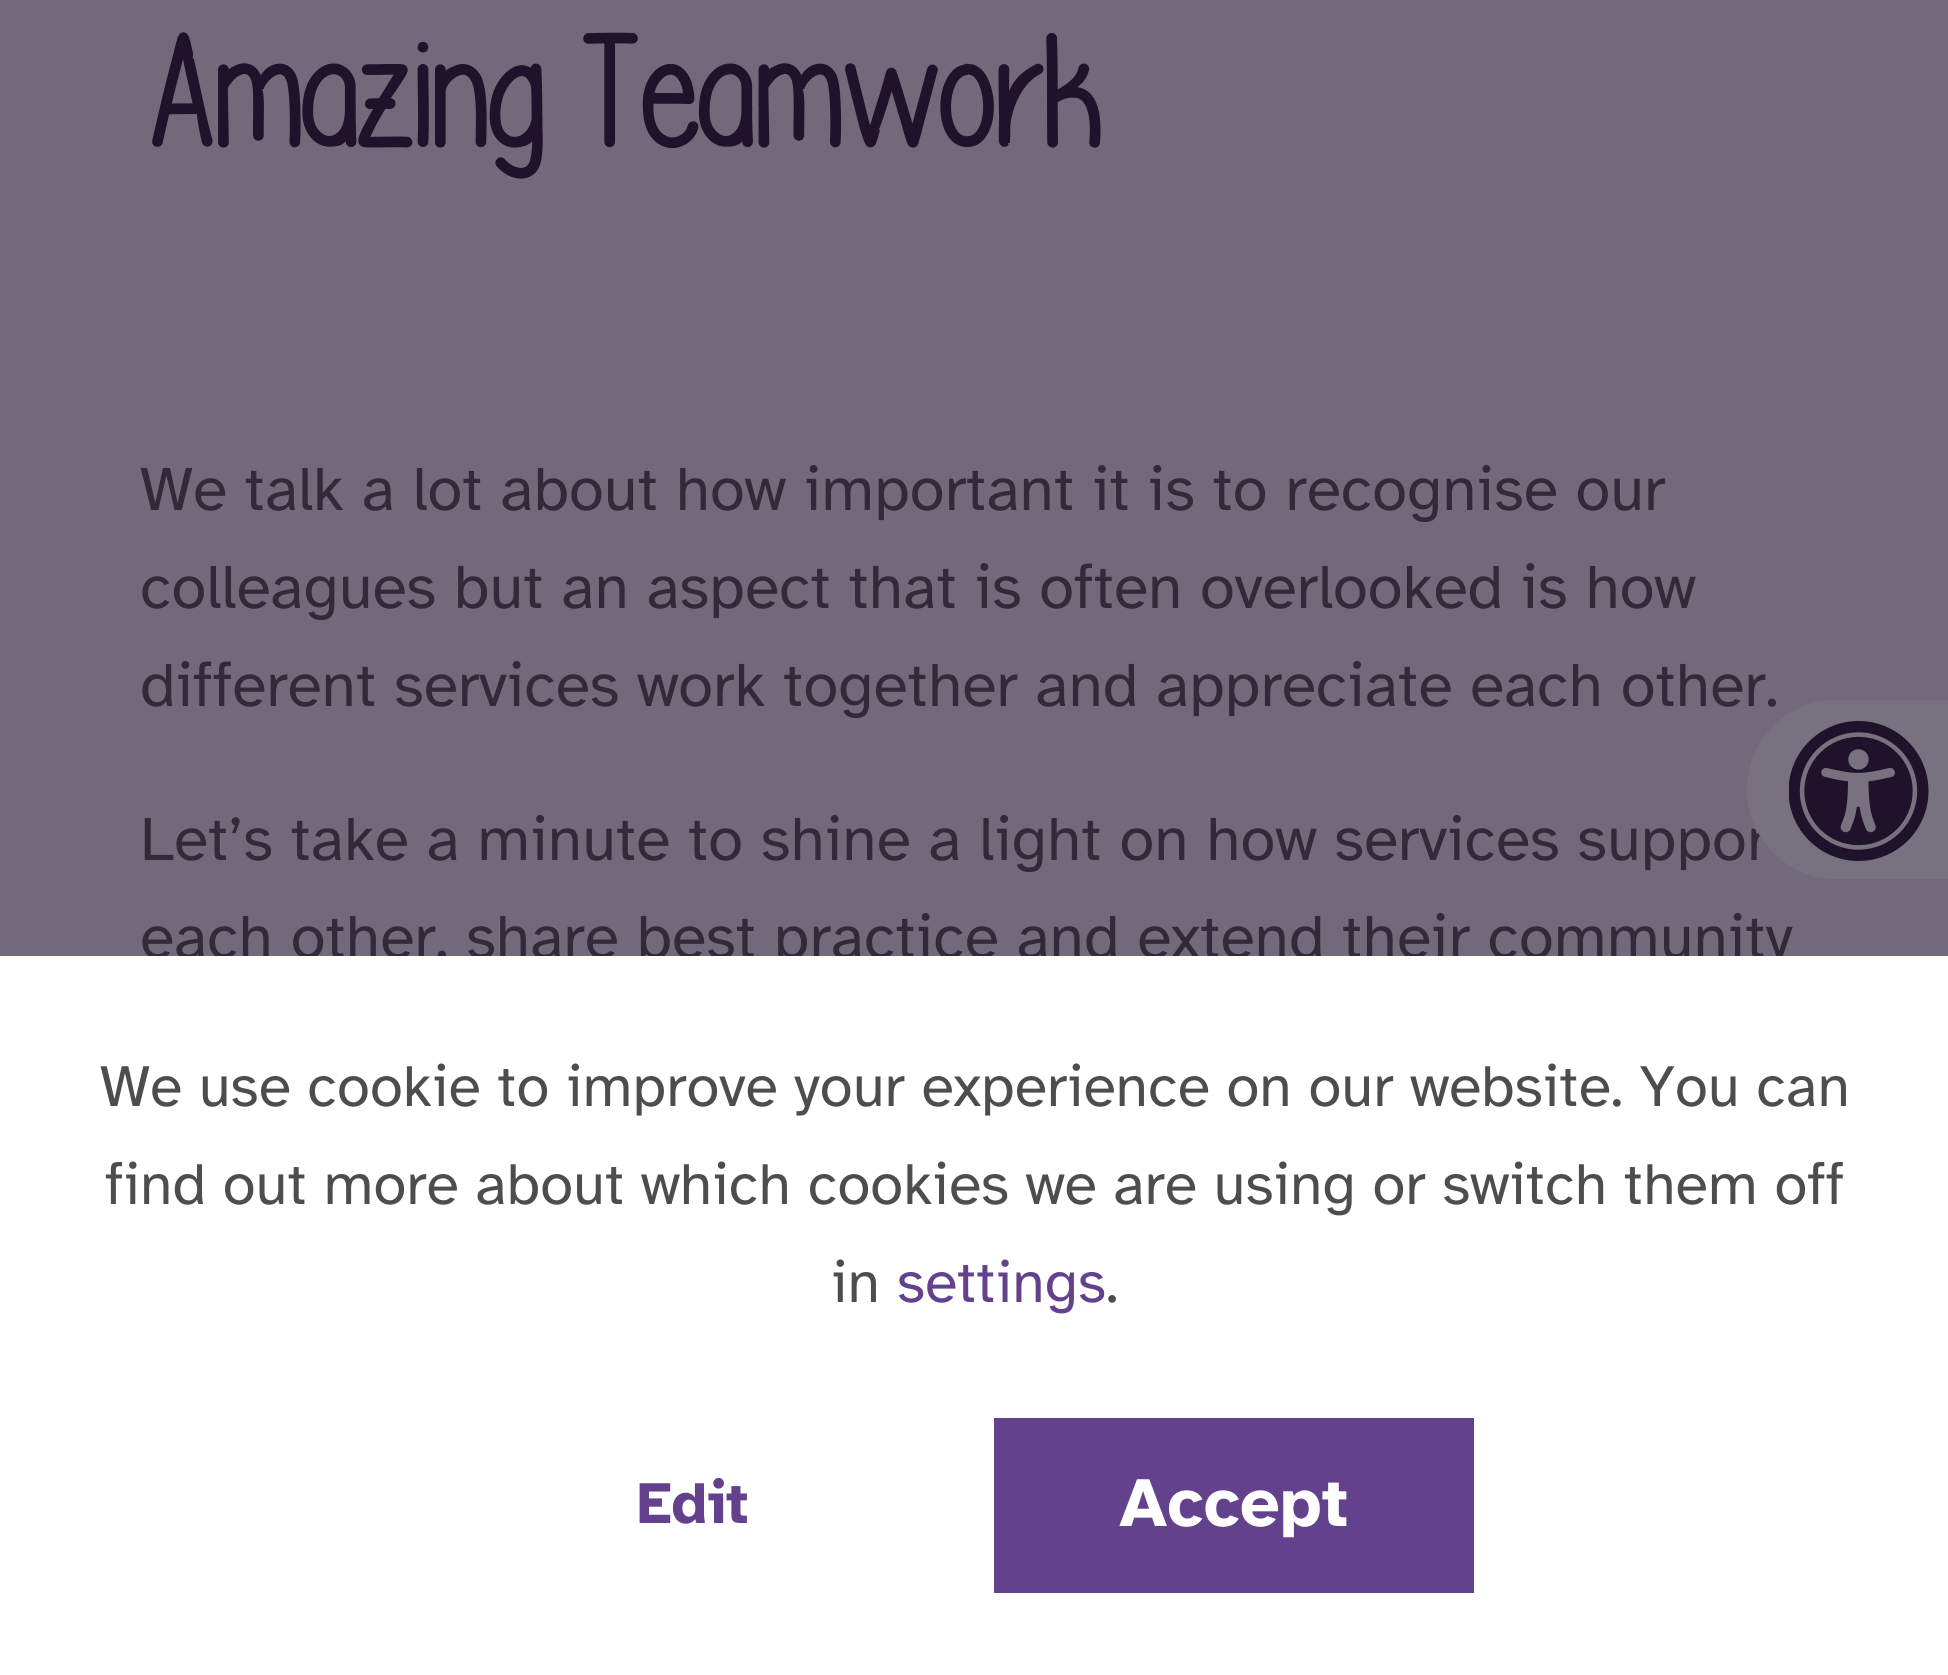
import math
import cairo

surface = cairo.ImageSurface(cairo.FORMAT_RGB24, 1948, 1675)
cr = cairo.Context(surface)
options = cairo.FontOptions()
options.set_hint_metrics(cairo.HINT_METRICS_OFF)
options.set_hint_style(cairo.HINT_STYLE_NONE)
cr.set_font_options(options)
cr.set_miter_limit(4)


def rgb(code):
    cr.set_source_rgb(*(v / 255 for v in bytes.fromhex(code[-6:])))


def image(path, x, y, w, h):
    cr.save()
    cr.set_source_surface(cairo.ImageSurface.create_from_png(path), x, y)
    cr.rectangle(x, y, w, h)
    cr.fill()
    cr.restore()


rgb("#726a7b")
cr.paint()
cr.select_font_face("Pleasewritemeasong", cairo.FONT_SLANT_NORMAL, cairo.FONT_WEIGHT_BOLD)
cr.set_font_size(157.5)
rgb("#1e132a")
cr.move_to(140, 147)
cr.show_text("Amazing Teamwork")
cr.select_font_face("Atkinson Hyperlegible")
cr.set_font_size(63)
rgb("#312a38")
for x, y, s in [
    (140, 510, "We talk a lot about how important it is to recognise our"),
    (140, 608, "colleagues but an aspect that is often overlooked is how"),
    (140, 706, "different services work together and appreciate each other."),
    (140, 860, "Let’s take a minute to shine a light on how services suppor"),
    (140, 958, "each other, share best practice and extend their community"),
]:
    cr.move_to(x, y)
    cr.show_text(s)
rgb("#78717f")
cr.new_path()
cr.move_to(1836.5, 700)
cr.line_to(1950, 700)
cr.line_to(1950, 879)
cr.line_to(1836.5, 879)
cr.curve_to(1787, 879, 1747, 839, 1747, 789.5)
cr.curve_to(1747, 740, 1787, 700, 1836.5, 700)
cr.close_path()
cr.fill()
image("img/1.png", 1789, 721, 140, 140)
rgb("#ffffff")
cr.rectangle(0, 956, 1948, 719)
cr.fill()
cr.set_font_size(59.5)
rgb("#4e4d4e")
for x, y, s in [
    (100, 1106, "We use cookie to improve your experience on our website. You can"),
    (105, 1204, "find out more about which cookies we are using or switch them off"),
    (831, 1302, "in"),
]:
    cr.move_to(x, y)
    cr.show_text(s)
rgb("#64418c")
cr.move_to(897, 1302)
cr.show_text("settings")
rgb("#4e4d4e")
cr.move_to(1106, 1302)
cr.show_text(".")
cr.select_font_face("Atkinson Hyperlegible", cairo.FONT_SLANT_NORMAL, cairo.FONT_WEIGHT_BOLD)
rgb("#64418c")
cr.move_to(637, 1523)
cr.show_text("Edit")
cr.rectangle(994, 1418, 480, 175)
cr.fill()
cr.set_font_size(70)
rgb("#ffffff")
cr.move_to(1119, 1526)
cr.show_text("Accept")
surface.write_to_png("page.png")
